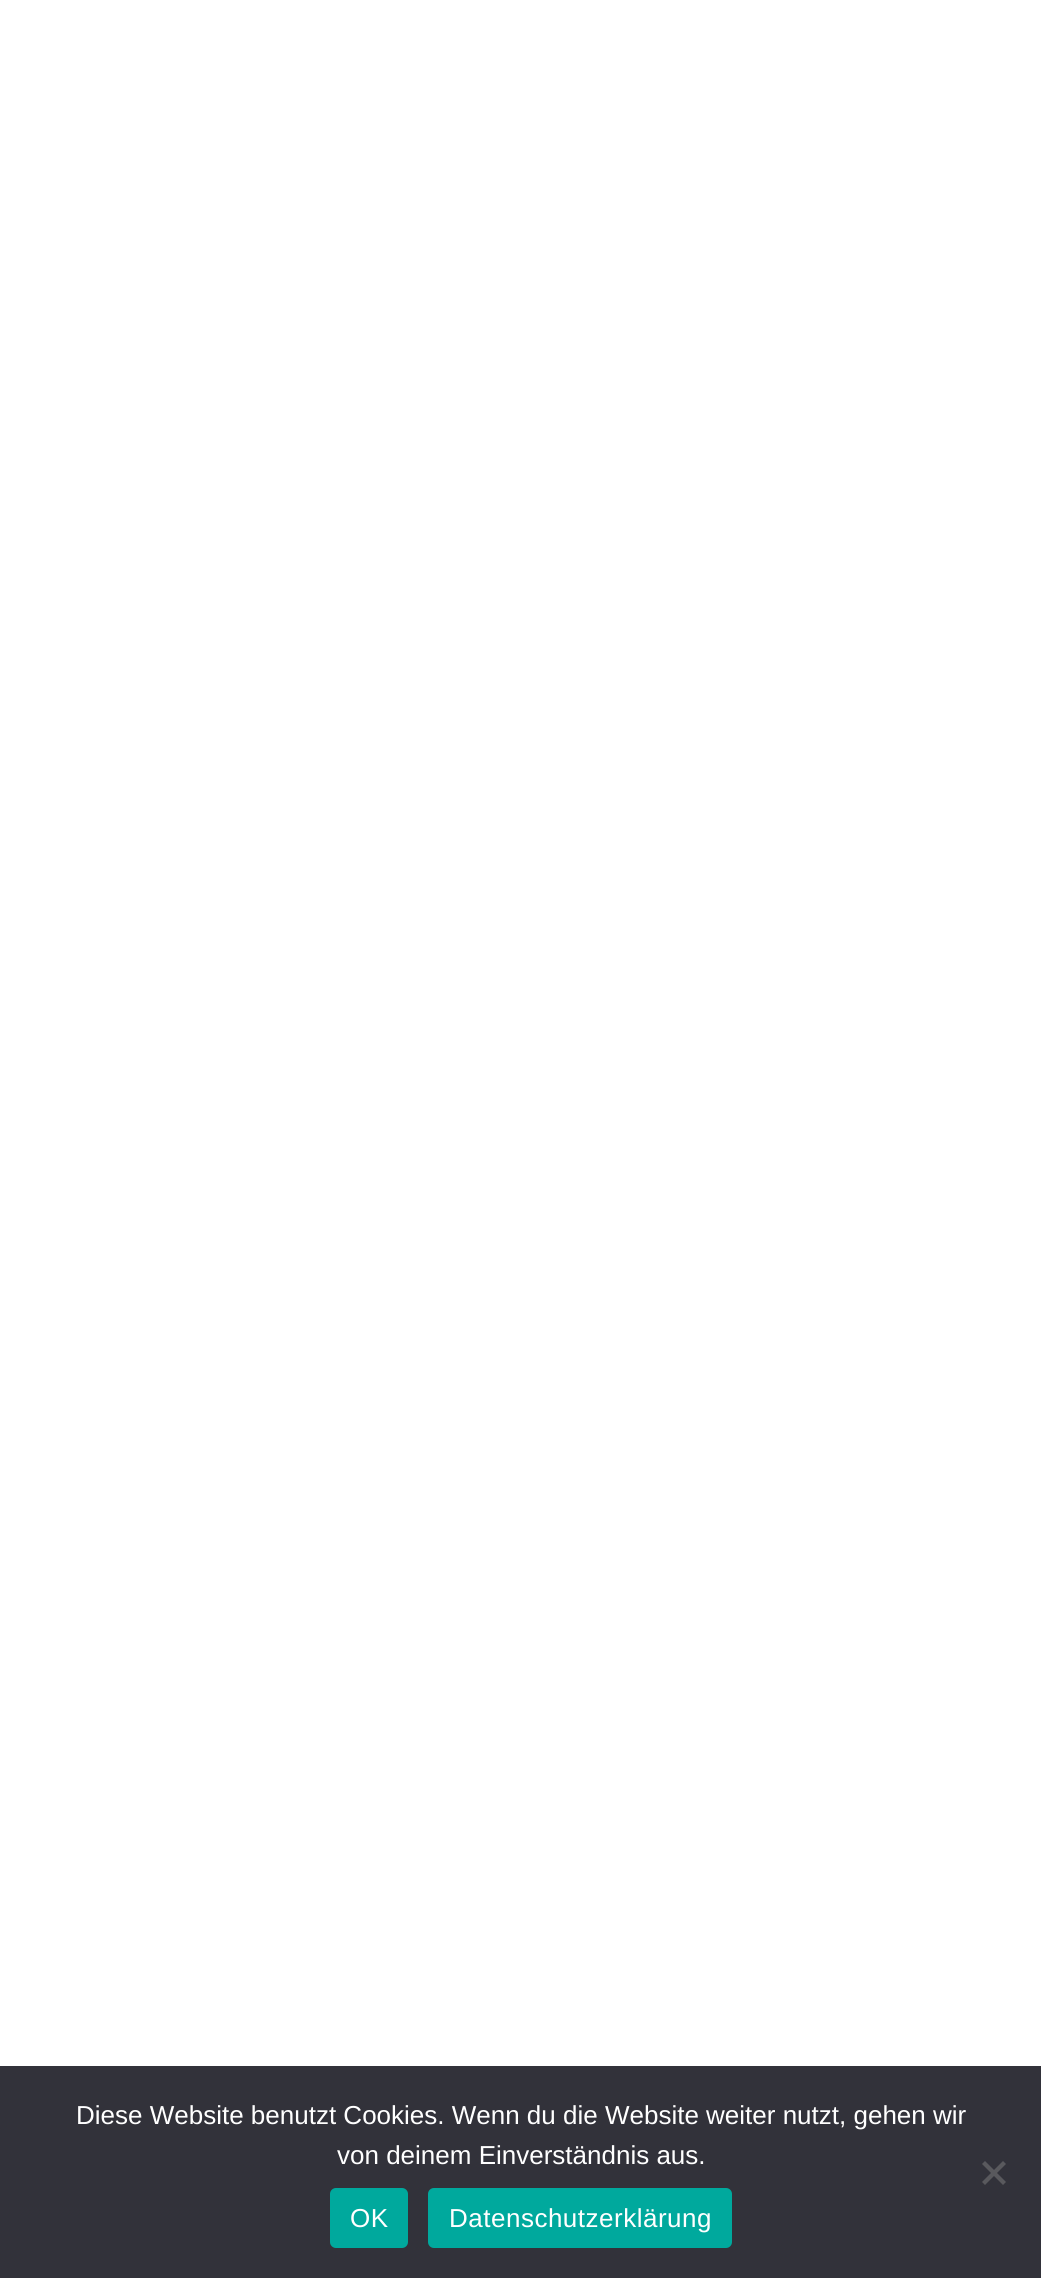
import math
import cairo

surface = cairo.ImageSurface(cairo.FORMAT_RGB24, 1041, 2278)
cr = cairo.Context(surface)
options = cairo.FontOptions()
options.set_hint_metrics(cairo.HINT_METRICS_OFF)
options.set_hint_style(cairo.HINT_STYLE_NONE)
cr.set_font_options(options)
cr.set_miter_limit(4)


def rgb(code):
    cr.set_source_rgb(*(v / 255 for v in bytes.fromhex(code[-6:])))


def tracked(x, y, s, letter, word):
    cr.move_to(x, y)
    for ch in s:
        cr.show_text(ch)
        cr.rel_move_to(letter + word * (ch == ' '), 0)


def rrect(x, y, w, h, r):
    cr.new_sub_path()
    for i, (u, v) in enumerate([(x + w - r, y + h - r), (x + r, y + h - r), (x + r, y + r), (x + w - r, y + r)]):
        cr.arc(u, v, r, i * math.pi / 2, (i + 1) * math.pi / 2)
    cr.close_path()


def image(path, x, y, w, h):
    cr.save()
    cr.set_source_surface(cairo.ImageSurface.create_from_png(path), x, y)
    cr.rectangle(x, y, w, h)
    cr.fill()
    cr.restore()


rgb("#ffffff")
cr.paint()
image("img/1.png", 89, 32, 387, 51)
image("img/2.png", 838, 48, 32, 20)
image("img/3.png", 911, 47, 30, 22)
rgb("#32323a")
cr.rectangle(0, 2066, 1041, 212)
cr.fill()
rgb("#59595d")
cr.new_path()
cr.move_to(1003, 2161)
cr.line_to(1006, 2164)
cr.line_to(985, 2185)
cr.line_to(982, 2182)
cr.close_path()
cr.fill()
cr.new_path()
cr.move_to(982, 2164)
cr.line_to(985, 2161)
cr.line_to(1006, 2182)
cr.line_to(1003, 2185)
cr.close_path()
cr.fill()
rgb("#00a99d")
rrect(330, 2188, 78, 60, 6)
cr.fill()
rrect(428, 2188, 304, 60, 6)
cr.fill()
cr.select_font_face("Liberation Sans")
cr.set_font_size(26)
rgb("#ffffff")
cr.move_to(76, 2124)
cr.show_text("Diese Website benutzt Cookies. Wenn du die Website weiter nutzt, gehen wir")
cr.move_to(337, 2164)
cr.show_text("von deinem Einverständnis aus.")
tracked(350, 2227, "OK", 0.5, 0)
tracked(449, 2227, "Datenschutzerklärung", 0.5, 0)
surface.write_to_png("page.png")
